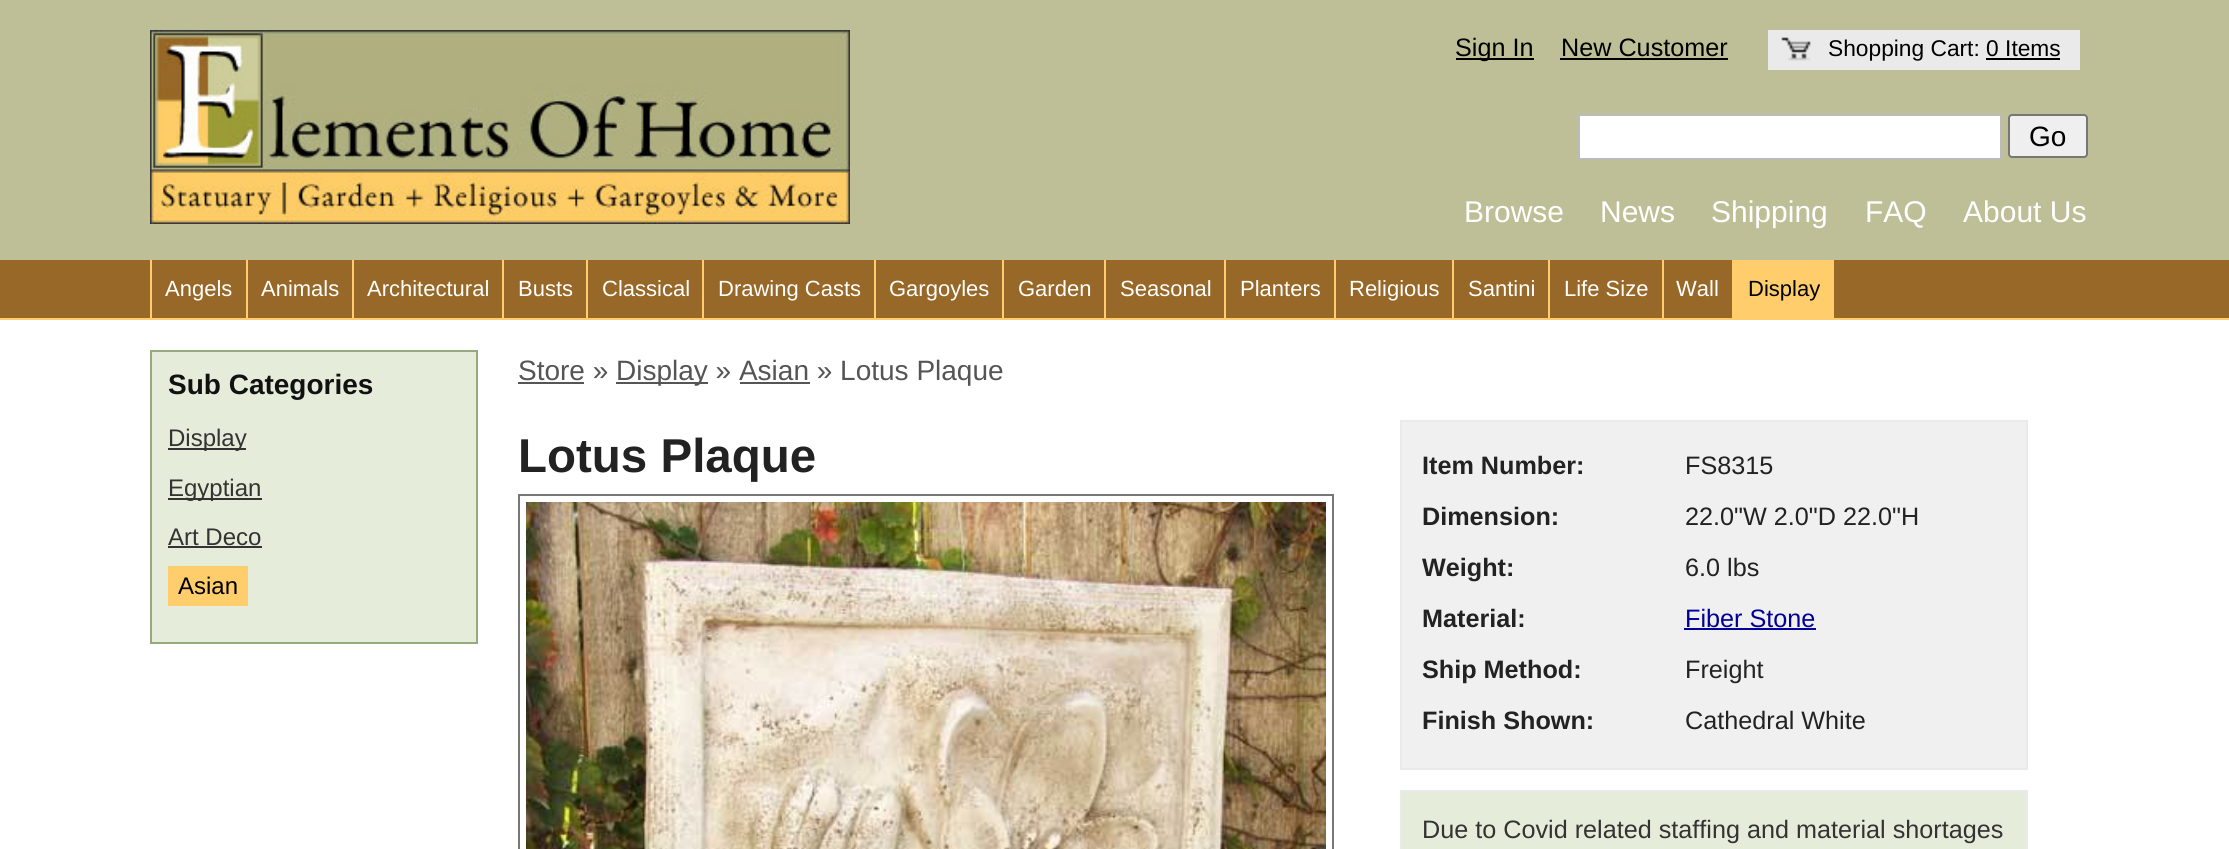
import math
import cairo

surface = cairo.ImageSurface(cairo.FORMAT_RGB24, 2229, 849)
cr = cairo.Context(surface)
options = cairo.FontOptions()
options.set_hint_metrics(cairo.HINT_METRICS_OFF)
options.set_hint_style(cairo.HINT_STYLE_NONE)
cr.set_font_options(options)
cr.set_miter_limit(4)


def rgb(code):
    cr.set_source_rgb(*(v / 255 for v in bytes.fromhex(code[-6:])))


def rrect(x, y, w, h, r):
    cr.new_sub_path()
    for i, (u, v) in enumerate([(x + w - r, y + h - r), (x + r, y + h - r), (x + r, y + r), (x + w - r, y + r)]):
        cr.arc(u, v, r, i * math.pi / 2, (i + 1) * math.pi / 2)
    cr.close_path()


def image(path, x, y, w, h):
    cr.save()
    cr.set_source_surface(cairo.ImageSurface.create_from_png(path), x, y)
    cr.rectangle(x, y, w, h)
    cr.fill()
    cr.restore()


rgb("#bebf97")
cr.paint()
image("img/1.png", 150, 30, 700, 194)
for x, y, w, h, color in [
    (1456, 58, 78, 2, "#000000"),
    (1560, 58, 168, 2, "#000000"),
    (1768, 30, 312, 40, "#eaeaea"),
]:
    rgb(color)
    cr.rectangle(x, y, w, h)
    cr.fill()
image("img/2.png", 1781, 37, 30, 24)
rgb("#000000")
cr.rectangle(1986, 58, 74, 2)
cr.fill()
rgb("#ffffff")
cr.rectangle(1579, 115, 422, 44)
cr.fill_preserve()
rgb("#bbbbbb")
cr.stroke()
rgb("#efefef")
rrect(2009, 115, 78, 42, 3)
cr.fill_preserve()
rgb("#767676")
cr.stroke()
for x, y, w, h, color in [
    (0, 260, 2229, 58, "#986828"),
    (0, 318, 2229, 2, "#ffcd6b"),
    (150, 260, 2, 58, "#ffcd6b"),
    (246, 260, 2, 58, "#ffcd6b"),
    (352, 260, 2, 58, "#ffcd6b"),
    (502, 260, 2, 58, "#ffcd6b"),
    (586, 260, 2, 58, "#ffcd6b"),
    (702, 260, 2, 58, "#ffcd6b"),
    (874, 260, 2, 58, "#ffcd6b"),
    (1002, 260, 2, 58, "#ffcd6b"),
    (1104, 260, 2, 58, "#ffcd6b"),
    (1224, 260, 2, 58, "#ffcd6b"),
    (1334, 260, 2, 58, "#ffcd6b"),
    (1452, 260, 2, 58, "#ffcd6b"),
    (1548, 260, 2, 58, "#ffcd6b"),
    (1662, 260, 2, 58, "#ffcd6b"),
    (1732, 260, 102, 58, "#ffcd6b"),
    (0, 320, 2229, 529, "#ffffff"),
]:
    rgb(color)
    cr.rectangle(x, y, w, h)
    cr.fill()
rgb("#e5edda")
cr.rectangle(151, 351, 326, 292)
cr.fill_preserve()
rgb("#97aa7f")
cr.stroke()
for x, y, w, h, color in [
    (168, 448, 78, 2, "#333333"),
    (168, 498, 94, 2, "#333333"),
    (168, 546, 94, 2, "#333333"),
    (168, 566, 80, 40, "#ffcd6b"),
    (518, 382, 66, 2, "#555555"),
    (616, 382, 92, 2, "#555555"),
    (740, 382, 70, 2, "#555555"),
]:
    rgb(color)
    cr.rectangle(x, y, w, h)
    cr.fill()
cr.rectangle(519, 495, 814, 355)
rgb("#777777")
cr.stroke()
image("img/3.png", 526, 502, 800, 347)
rgb("#f0f0f0")
cr.rectangle(1401, 421, 626, 348)
cr.fill_preserve()
rgb("#eaeaea")
cr.stroke()
rgb("#000099")
cr.rectangle(1684, 628, 132, 2)
cr.fill()
rgb("#e5edda")
cr.rectangle(1401, 791, 626, 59)
cr.fill_preserve()
rgb("#eaeaea")
cr.stroke()
cr.select_font_face("Liberation Sans")
cr.set_font_size(25.2)
rgb("#000000")
cr.move_to(1455, 56)
cr.show_text("Sign In")
cr.move_to(1561, 56)
cr.show_text("New Customer")
cr.set_font_size(22.75)
cr.move_to(1828, 56)
cr.show_text("Shopping Cart: 0 Items")
cr.set_font_size(28)
cr.move_to(2029, 146)
cr.show_text("Go")
cr.set_font_size(30)
rgb("#ffffff")
for x, y, s in [
    (1464, 222, "Browse"),
    (1600, 222, "News"),
    (1711, 222, "Shipping"),
    (1865, 222, "FAQ"),
    (1963, 222, "About Us"),
]:
    cr.move_to(x, y)
    cr.show_text(s)
cr.set_font_size(22)
for x, y, s in [
    (165, 296, "Angels"),
    (261, 296, "Animals"),
    (367, 296, "Architectural"),
    (518, 296, "Busts"),
    (602, 296, "Classical"),
    (718, 296, "Drawing Casts"),
    (889, 296, "Gargoyles"),
    (1018, 296, "Garden"),
    (1120, 296, "Seasonal"),
    (1240, 296, "Planters"),
    (1349, 296, "Religious"),
    (1468, 296, "Santini"),
    (1564, 296, "Life Size"),
    (1676, 296, "Wall"),
]:
    cr.move_to(x, y)
    cr.show_text(s)
rgb("#000000")
cr.move_to(1748, 296)
cr.show_text("Display")
cr.select_font_face("Liberation Sans", cairo.FONT_SLANT_NORMAL, cairo.FONT_WEIGHT_BOLD)
cr.set_font_size(28)
rgb("#111111")
cr.move_to(168, 394)
cr.show_text("Sub Categories")
cr.select_font_face("Liberation Sans")
cr.set_font_size(24)
rgb("#333333")
for x, y, s in [
    (168, 446, "Display"),
    (168, 496, "Egyptian"),
    (168, 545, "Art Deco"),
]:
    cr.move_to(x, y)
    cr.show_text(s)
rgb("#000000")
cr.move_to(178, 594)
cr.show_text("Asian")
cr.set_font_size(28)
rgb("#555555")
cr.move_to(518, 380)
cr.show_text("Store »")
cr.move_to(616, 380)
cr.show_text("Display » Asian » Lotus Plaque")
cr.select_font_face("Liberation Sans", cairo.FONT_SLANT_NORMAL, cairo.FONT_WEIGHT_BOLD)
cr.set_font_size(47.5)
rgb("#222222")
cr.move_to(518, 472)
cr.show_text("Lotus Plaque")
cr.set_font_size(25.2)
cr.move_to(1422, 474)
cr.show_text("Item Number:")
cr.select_font_face("Liberation Sans")
cr.move_to(1685, 474)
cr.show_text("FS8315")
cr.select_font_face("Liberation Sans", cairo.FONT_SLANT_NORMAL, cairo.FONT_WEIGHT_BOLD)
cr.move_to(1422, 525)
cr.show_text("Dimension:")
cr.select_font_face("Liberation Sans")
cr.move_to(1685, 525)
cr.show_text("22.0\"W 2.0\"D 22.0\"H")
cr.select_font_face("Liberation Sans", cairo.FONT_SLANT_NORMAL, cairo.FONT_WEIGHT_BOLD)
cr.move_to(1422, 576)
cr.show_text("Weight:")
cr.select_font_face("Liberation Sans")
cr.move_to(1685, 576)
cr.show_text("6.0 lbs")
cr.select_font_face("Liberation Sans", cairo.FONT_SLANT_NORMAL, cairo.FONT_WEIGHT_BOLD)
cr.move_to(1422, 627)
cr.show_text("Material:")
cr.select_font_face("Liberation Sans")
rgb("#000099")
cr.move_to(1685, 627)
cr.show_text("Fiber Stone")
cr.select_font_face("Liberation Sans", cairo.FONT_SLANT_NORMAL, cairo.FONT_WEIGHT_BOLD)
rgb("#222222")
cr.move_to(1422, 678)
cr.show_text("Ship Method:")
cr.select_font_face("Liberation Sans")
cr.move_to(1685, 678)
cr.show_text("Freight")
cr.select_font_face("Liberation Sans", cairo.FONT_SLANT_NORMAL, cairo.FONT_WEIGHT_BOLD)
cr.move_to(1422, 729)
cr.show_text("Finish Shown:")
cr.select_font_face("Liberation Sans")
cr.move_to(1685, 729)
cr.show_text("Cathedral White")
rgb("#333333")
cr.move_to(1422, 838)
cr.show_text("Due to Covid related staffing and material shortages")
surface.write_to_png("page.png")
